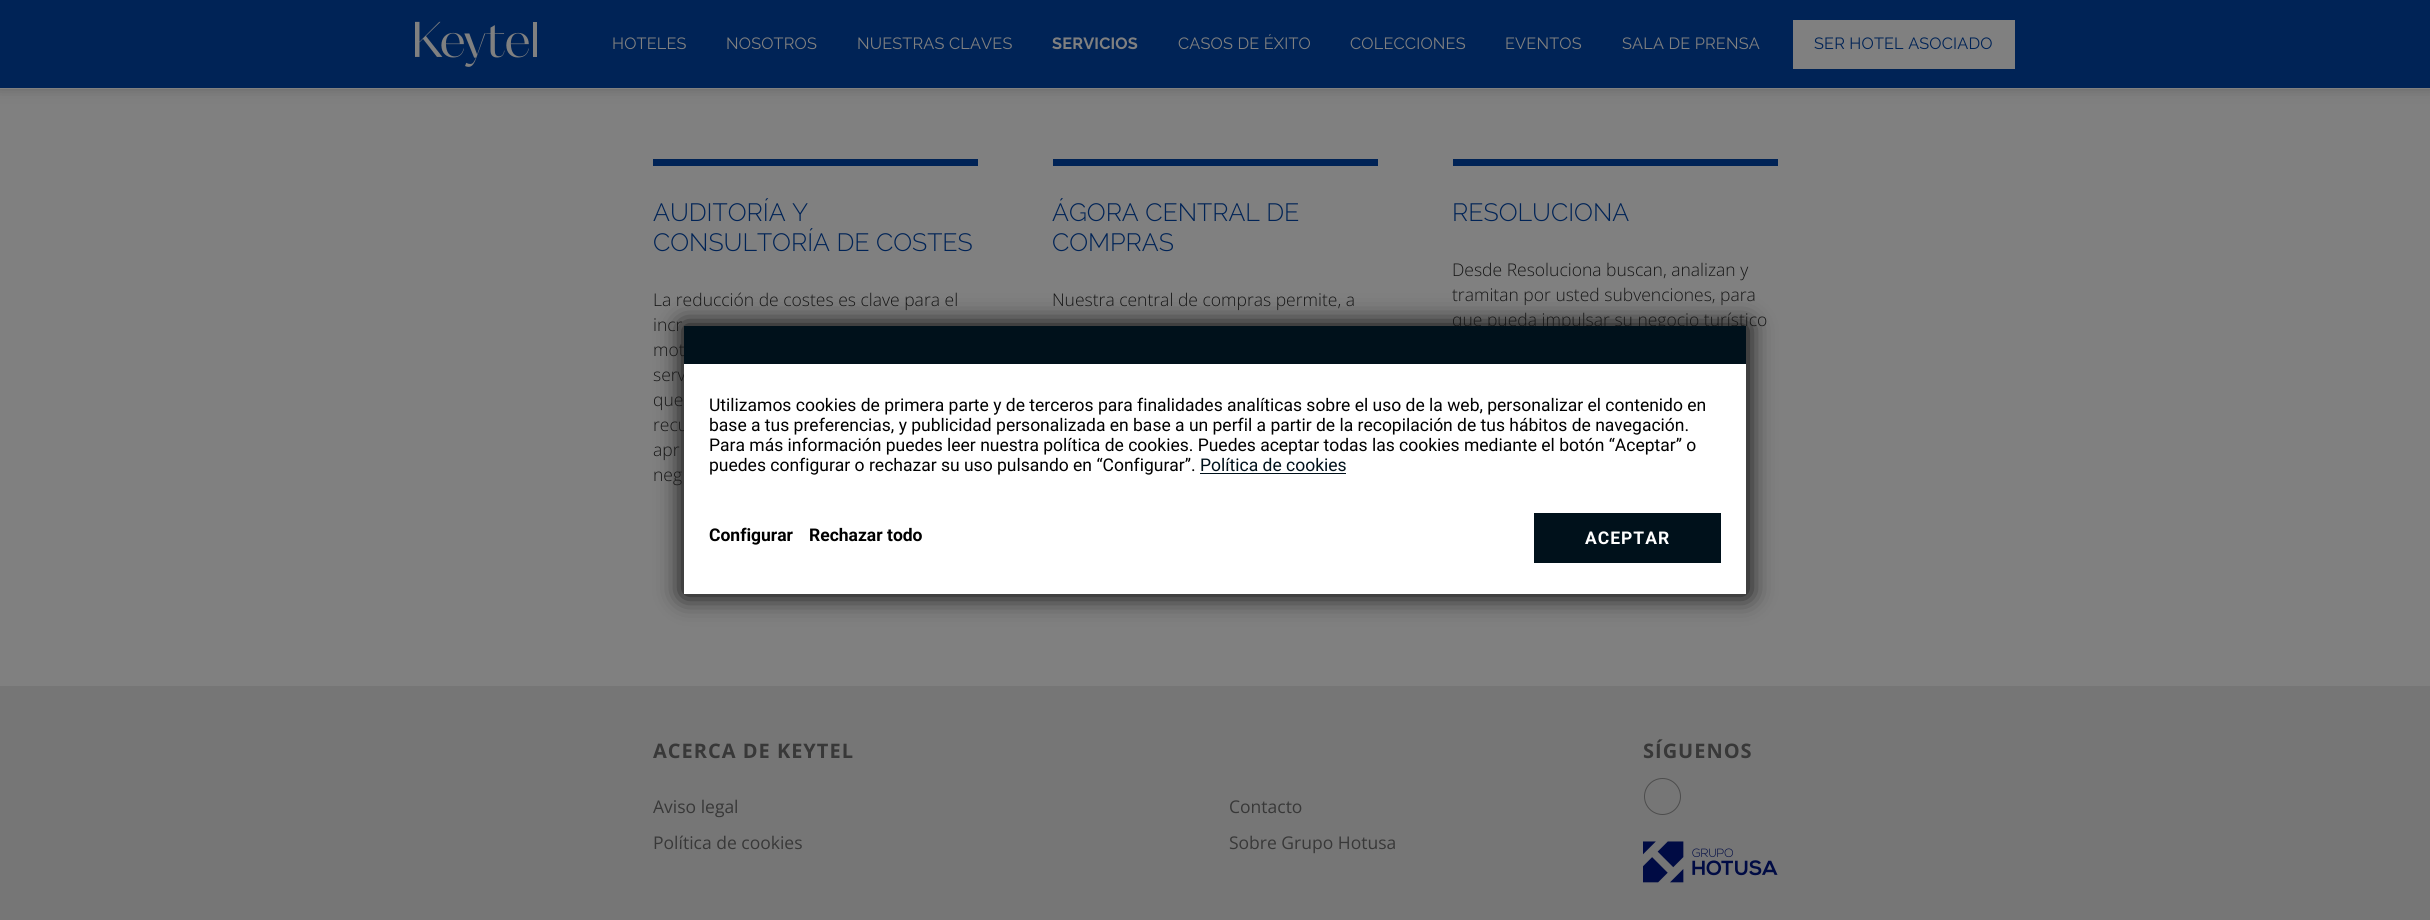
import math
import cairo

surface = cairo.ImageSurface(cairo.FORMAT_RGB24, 2430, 920)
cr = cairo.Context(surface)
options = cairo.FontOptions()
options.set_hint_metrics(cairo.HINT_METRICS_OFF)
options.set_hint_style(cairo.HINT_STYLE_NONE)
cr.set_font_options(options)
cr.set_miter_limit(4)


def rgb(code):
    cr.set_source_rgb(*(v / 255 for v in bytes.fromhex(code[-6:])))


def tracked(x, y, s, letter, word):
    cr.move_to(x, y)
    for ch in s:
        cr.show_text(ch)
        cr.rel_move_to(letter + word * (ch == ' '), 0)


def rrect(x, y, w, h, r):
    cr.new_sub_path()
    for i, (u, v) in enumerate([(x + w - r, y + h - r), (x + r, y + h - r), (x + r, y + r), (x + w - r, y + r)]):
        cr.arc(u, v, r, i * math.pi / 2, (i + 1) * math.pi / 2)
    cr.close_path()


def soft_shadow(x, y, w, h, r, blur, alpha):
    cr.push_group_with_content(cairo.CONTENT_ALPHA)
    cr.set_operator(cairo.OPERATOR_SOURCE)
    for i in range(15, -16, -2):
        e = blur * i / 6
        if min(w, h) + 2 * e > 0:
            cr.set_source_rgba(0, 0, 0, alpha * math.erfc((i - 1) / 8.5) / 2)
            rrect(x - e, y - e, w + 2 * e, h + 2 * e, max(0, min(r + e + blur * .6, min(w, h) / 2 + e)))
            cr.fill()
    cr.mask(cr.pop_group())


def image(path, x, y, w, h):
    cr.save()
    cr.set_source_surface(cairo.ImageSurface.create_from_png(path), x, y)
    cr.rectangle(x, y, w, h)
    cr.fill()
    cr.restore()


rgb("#808080")
cr.paint()
rgb("#000000")
soft_shadow(-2, -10, 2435, 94, 0, 8, 0.4)
rgb("#002356")
cr.rectangle(0, 0, 2430, 88)
cr.fill()
rgb("#808080")
cr.rectangle(0, 88, 2430, 1)
cr.fill()
image("img/1.png", 415, 21, 122, 46)
for x, y, w, h, color in [
    (1793, 20, 222, 49, "#808080"),
    (653, 159, 325, 7, "#002356"),
    (1053, 159, 325, 7, "#002356"),
    (1453, 159, 325, 7, "#002356"),
]:
    rgb(color)
    cr.rectangle(x, y, w, h)
    cr.fill()
rgb("#000000")
soft_shadow(683, 325, 1065, 270, 0, 12.5, 1)
rgb("#767676")
cr.rectangle(0, 686, 2430, 234)
cr.fill()
cr.arc(1662.5, 796.5, 18, 0, 2 * math.pi)
rgb("#4d4d4d")
cr.set_line_width(1)
cr.stroke()
image("img/2.png", 1643, 841, 135, 42)
cr.select_font_face("Raleway")
cr.set_font_size(16.25)
rgb("#808080")
for x, y, s in [
    (612, 49, "HOTELES"),
    (726, 49, "NOSOTROS"),
    (857, 49, "NUESTRAS CLAVES"),
]:
    tracked(x, y, s, 0.2, 0)
cr.select_font_face("Raleway", cairo.FONT_SLANT_NORMAL, cairo.FONT_WEIGHT_BOLD)
tracked(1052, 49, "SERVICIOS", 0.2, 0)
cr.select_font_face("Raleway")
for x, y, s in [
    (1178, 49, "CASOS DE ÉXITO"),
    (1350, 49, "COLECCIONES"),
    (1505, 49, "EVENTOS"),
    (1622, 49, "SALA DE PRENSA"),
]:
    tracked(x, y, s, 0.2, 0)
rgb("#002356")
tracked(1814, 49, "SER HOTEL ASOCIADO", 0.2, 0)
cr.select_font_face("Raleway Light")
cr.set_font_size(25)
cr.move_to(653, 221)
cr.show_text("AUDITORÍA Y")
cr.move_to(653, 251)
cr.show_text("CONSULTORÍA DE COSTES")
cr.select_font_face("Open Sans Light")
cr.set_font_size(17.5)
rgb("#161616")
for x, y, s in [
    (653, 306, "La reducción de costes es clave para el"),
    (653, 331, "incr"),
    (653, 356, "mot"),
    (653, 381, "serv"),
    (653, 406, "que"),
    (653, 431, "recu"),
    (653, 456, "apr"),
    (653, 481, "neg"),
]:
    cr.move_to(x, y)
    cr.show_text(s)
cr.select_font_face("Raleway Light")
cr.set_font_size(25)
rgb("#002356")
cr.move_to(1052, 221)
cr.show_text("ÁGORA CENTRAL DE")
cr.move_to(1052, 251)
cr.show_text("COMPRAS")
cr.select_font_face("Open Sans Light")
cr.set_font_size(17.5)
rgb("#161616")
cr.move_to(1052, 306)
cr.show_text("Nuestra central de compras permite, a")
cr.select_font_face("Raleway Light")
cr.set_font_size(25)
rgb("#002356")
cr.move_to(1452, 221)
cr.show_text("RESOLUCIONA")
cr.select_font_face("Open Sans Light")
cr.set_font_size(17.5)
rgb("#161616")
for x, y, s in [
    (1452, 276, "Desde Resoluciona buscan, analizan y"),
    (1452, 301, "tramitan por usted subvenciones, para"),
    (1452, 326, "que pueda impulsar su negocio turístico"),
]:
    cr.move_to(x, y)
    cr.show_text(s)
rgb("#00111b")
cr.rectangle(684, 326, 1062, 38)
cr.fill()
rgb("#ffffff")
cr.rectangle(684, 364, 1062, 230)
cr.fill()
cr.select_font_face("Roboto")
rgb("#000000")
for x, y, s in [
    (709, 411, "Utilizamos cookies de primera parte y de terceros para finalidades analíticas sobre el uso de la web, personalizar el contenido en"),
    (709, 431, "base a tus preferencias, y publicidad personalizada en base a un perfil a partir de la recopilación de tus hábitos de navegación."),
    (709, 451, "Para más información puedes leer nuestra política de cookies. Puedes aceptar todas las cookies mediante el botón “Aceptar” o"),
    (709, 471, "puedes configurar o rechazar su uso pulsando en “Configurar”."),
]:
    cr.move_to(x, y)
    cr.show_text(s)
rgb("#00111b")
cr.move_to(1200, 471)
cr.show_text("Política de cookies")
cr.rectangle(1200, 473, 146, 1)
cr.fill()
cr.select_font_face("Roboto", cairo.FONT_SLANT_NORMAL, cairo.FONT_WEIGHT_BOLD)
rgb("#000000")
cr.move_to(709, 541)
cr.show_text("Configurar")
cr.move_to(809, 541)
cr.show_text("Rechazar todo")
rgb("#00111b")
cr.rectangle(1534, 513, 187, 50)
cr.fill()
rgb("#ffffff")
tracked(1585, 544, "ACEPTAR", 1, 0)
cr.select_font_face("Open Sans", cairo.FONT_SLANT_NORMAL, cairo.FONT_WEIGHT_BOLD)
cr.set_font_size(20)
rgb("#383838")
tracked(653, 758, "ACERCA DE KEYTEL", 1, 0)
cr.select_font_face("Open Sans")
cr.set_font_size(17.5)
for x, y, s in [
    (653, 813, "Aviso legal"),
    (1229, 813, "Contacto"),
    (653, 849, "Política de cookies"),
    (1229, 849, "Sobre Grupo Hotusa"),
]:
    cr.move_to(x, y)
    cr.show_text(s)
cr.select_font_face("Open Sans", cairo.FONT_SLANT_NORMAL, cairo.FONT_WEIGHT_BOLD)
cr.set_font_size(20)
tracked(1643, 758, "SÍGUENOS", 1, 0)
surface.write_to_png("page.png")
